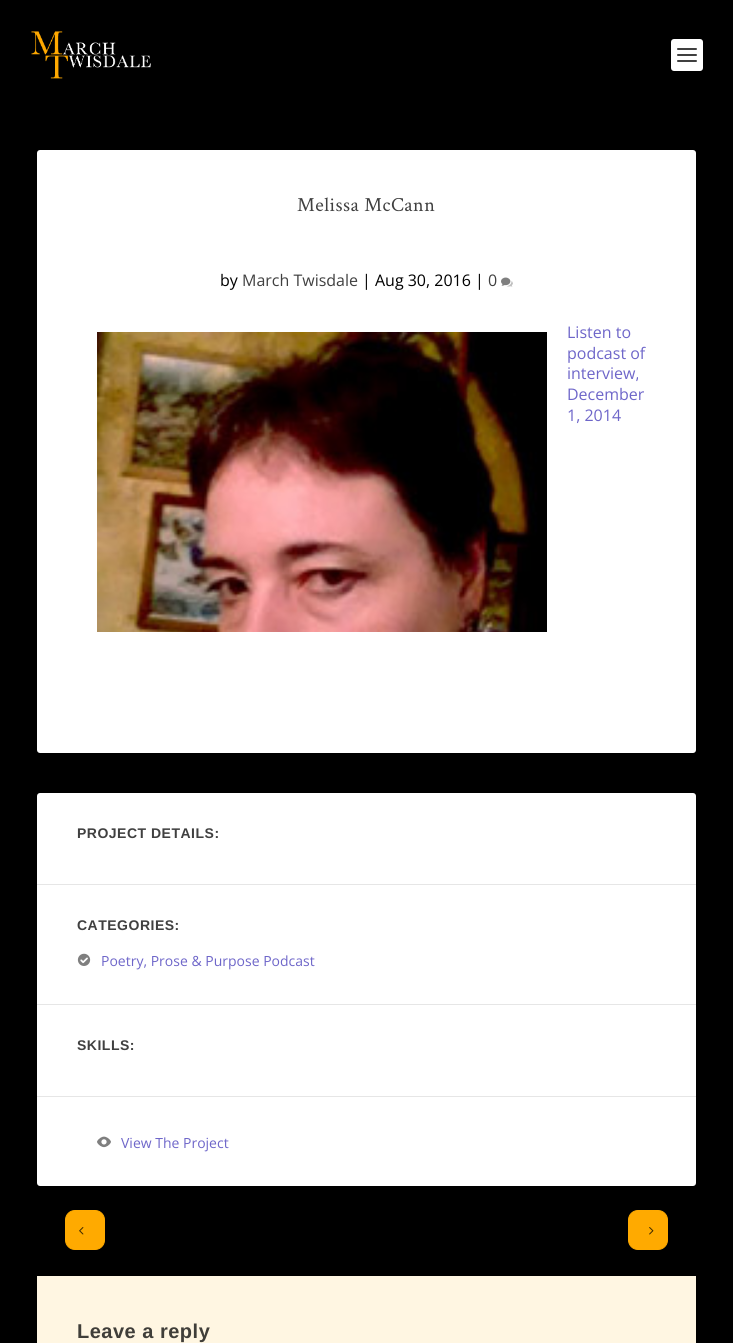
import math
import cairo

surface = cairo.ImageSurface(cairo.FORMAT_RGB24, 733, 1343)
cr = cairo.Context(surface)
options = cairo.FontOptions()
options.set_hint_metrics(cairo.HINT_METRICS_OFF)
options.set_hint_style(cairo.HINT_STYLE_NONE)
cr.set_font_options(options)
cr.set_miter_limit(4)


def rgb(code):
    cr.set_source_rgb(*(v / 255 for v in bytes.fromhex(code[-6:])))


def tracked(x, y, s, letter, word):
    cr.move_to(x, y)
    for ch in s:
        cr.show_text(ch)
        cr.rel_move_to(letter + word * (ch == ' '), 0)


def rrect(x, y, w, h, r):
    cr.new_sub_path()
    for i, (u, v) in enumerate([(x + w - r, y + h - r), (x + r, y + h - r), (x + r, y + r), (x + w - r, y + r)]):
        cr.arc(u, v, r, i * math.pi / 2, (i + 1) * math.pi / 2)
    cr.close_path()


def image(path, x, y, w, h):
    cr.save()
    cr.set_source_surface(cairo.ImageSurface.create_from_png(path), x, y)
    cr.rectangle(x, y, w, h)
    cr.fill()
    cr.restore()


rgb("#000000")
cr.paint()
image("img/1.png", 31, 31, 120, 48)
rgb("#ffffff")
rrect(671, 39, 32, 32, 3)
cr.fill()
rgb("#404040")
rrect(677, 48, 20, 2, 1)
cr.fill()
rrect(677, 54, 20, 2, 1)
cr.fill()
rrect(677, 60, 20, 2, 1)
cr.fill()
rgb("#ffffff")
rrect(37, 150, 659, 603, 3)
cr.fill()
image("img/2.png", 501, 277, 12, 10)
image("img/3.png", 97, 332, 450, 300)
rrect(37, 793, 659, 393, 3)
cr.fill()
rgb("#e6e6e6")
cr.rectangle(37, 884, 659, 1)
cr.fill()
cr.rectangle(37, 1004, 659, 1)
cr.fill()
image("img/4.png", 77, 953, 14, 13)
cr.rectangle(37, 1096, 659, 1)
cr.fill()
image("img/5.png", 97, 1136, 14, 12)
rgb("#ffaa00")
rrect(65.5, 1210.5, 39, 39, 9.5)
cr.fill_preserve()
cr.set_line_width(1)
cr.stroke()
image("img/6.png", 79, 1227, 5, 8)
rrect(628.5, 1210.5, 39, 39, 9.5)
cr.fill_preserve()
cr.stroke()
image("img/7.png", 649, 1227, 5, 8)
rgb("#fff6e2")
cr.rectangle(37, 1276, 659, 67)
cr.fill()
cr.select_font_face("Crimson Text")
cr.set_font_size(20)
rgb("#404040")
tracked(297, 211, "Melissa McCann", 0.5, 0)
cr.select_font_face("Open Sans")
cr.set_font_size(16)
rgb("#000000")
cr.move_to(220, 286)
cr.show_text("by")
rgb("#404040")
cr.move_to(242, 286)
cr.show_text("March Twisdale")
rgb("#000000")
cr.move_to(362, 286)
cr.show_text("| Aug 30, 2016 |")
rgb("#404040")
cr.move_to(488, 286)
cr.show_text("0")
rgb("#6e66c9")
for x, y, s in [
    (567, 338, "Listen to"),
    (567, 359, "podcast of"),
    (567, 379, "interview,"),
    (567, 400, "December"),
    (567, 421, "1, 2014"),
]:
    cr.move_to(x, y)
    cr.show_text(s)
cr.select_font_face("Liberation Sans", cairo.FONT_SLANT_NORMAL, cairo.FONT_WEIGHT_BOLD)
cr.set_font_size(14)
rgb("#404040")
tracked(77, 838, "PROJECT DETAILS:", 0.5, 0)
tracked(77, 930, "CATEGORIES:", 0.5, 0)
cr.select_font_face("Open Sans")
rgb("#6e66c9")
cr.move_to(101, 966)
cr.show_text("Poetry, Prose & Purpose Podcast")
cr.select_font_face("Liberation Sans", cairo.FONT_SLANT_NORMAL, cairo.FONT_WEIGHT_BOLD)
rgb("#404040")
tracked(77, 1050, "SKILLS:", 0.5, 0)
cr.select_font_face("Open Sans")
rgb("#6e66c9")
cr.move_to(121, 1148)
cr.show_text("View The Project")
cr.select_font_face("Liberation Sans", cairo.FONT_SLANT_NORMAL, cairo.FONT_WEIGHT_BOLD)
cr.set_font_size(20)
rgb("#403e39")
tracked(77, 1338, "Leave a reply", 0.5, 0)
surface.write_to_png("page.png")
